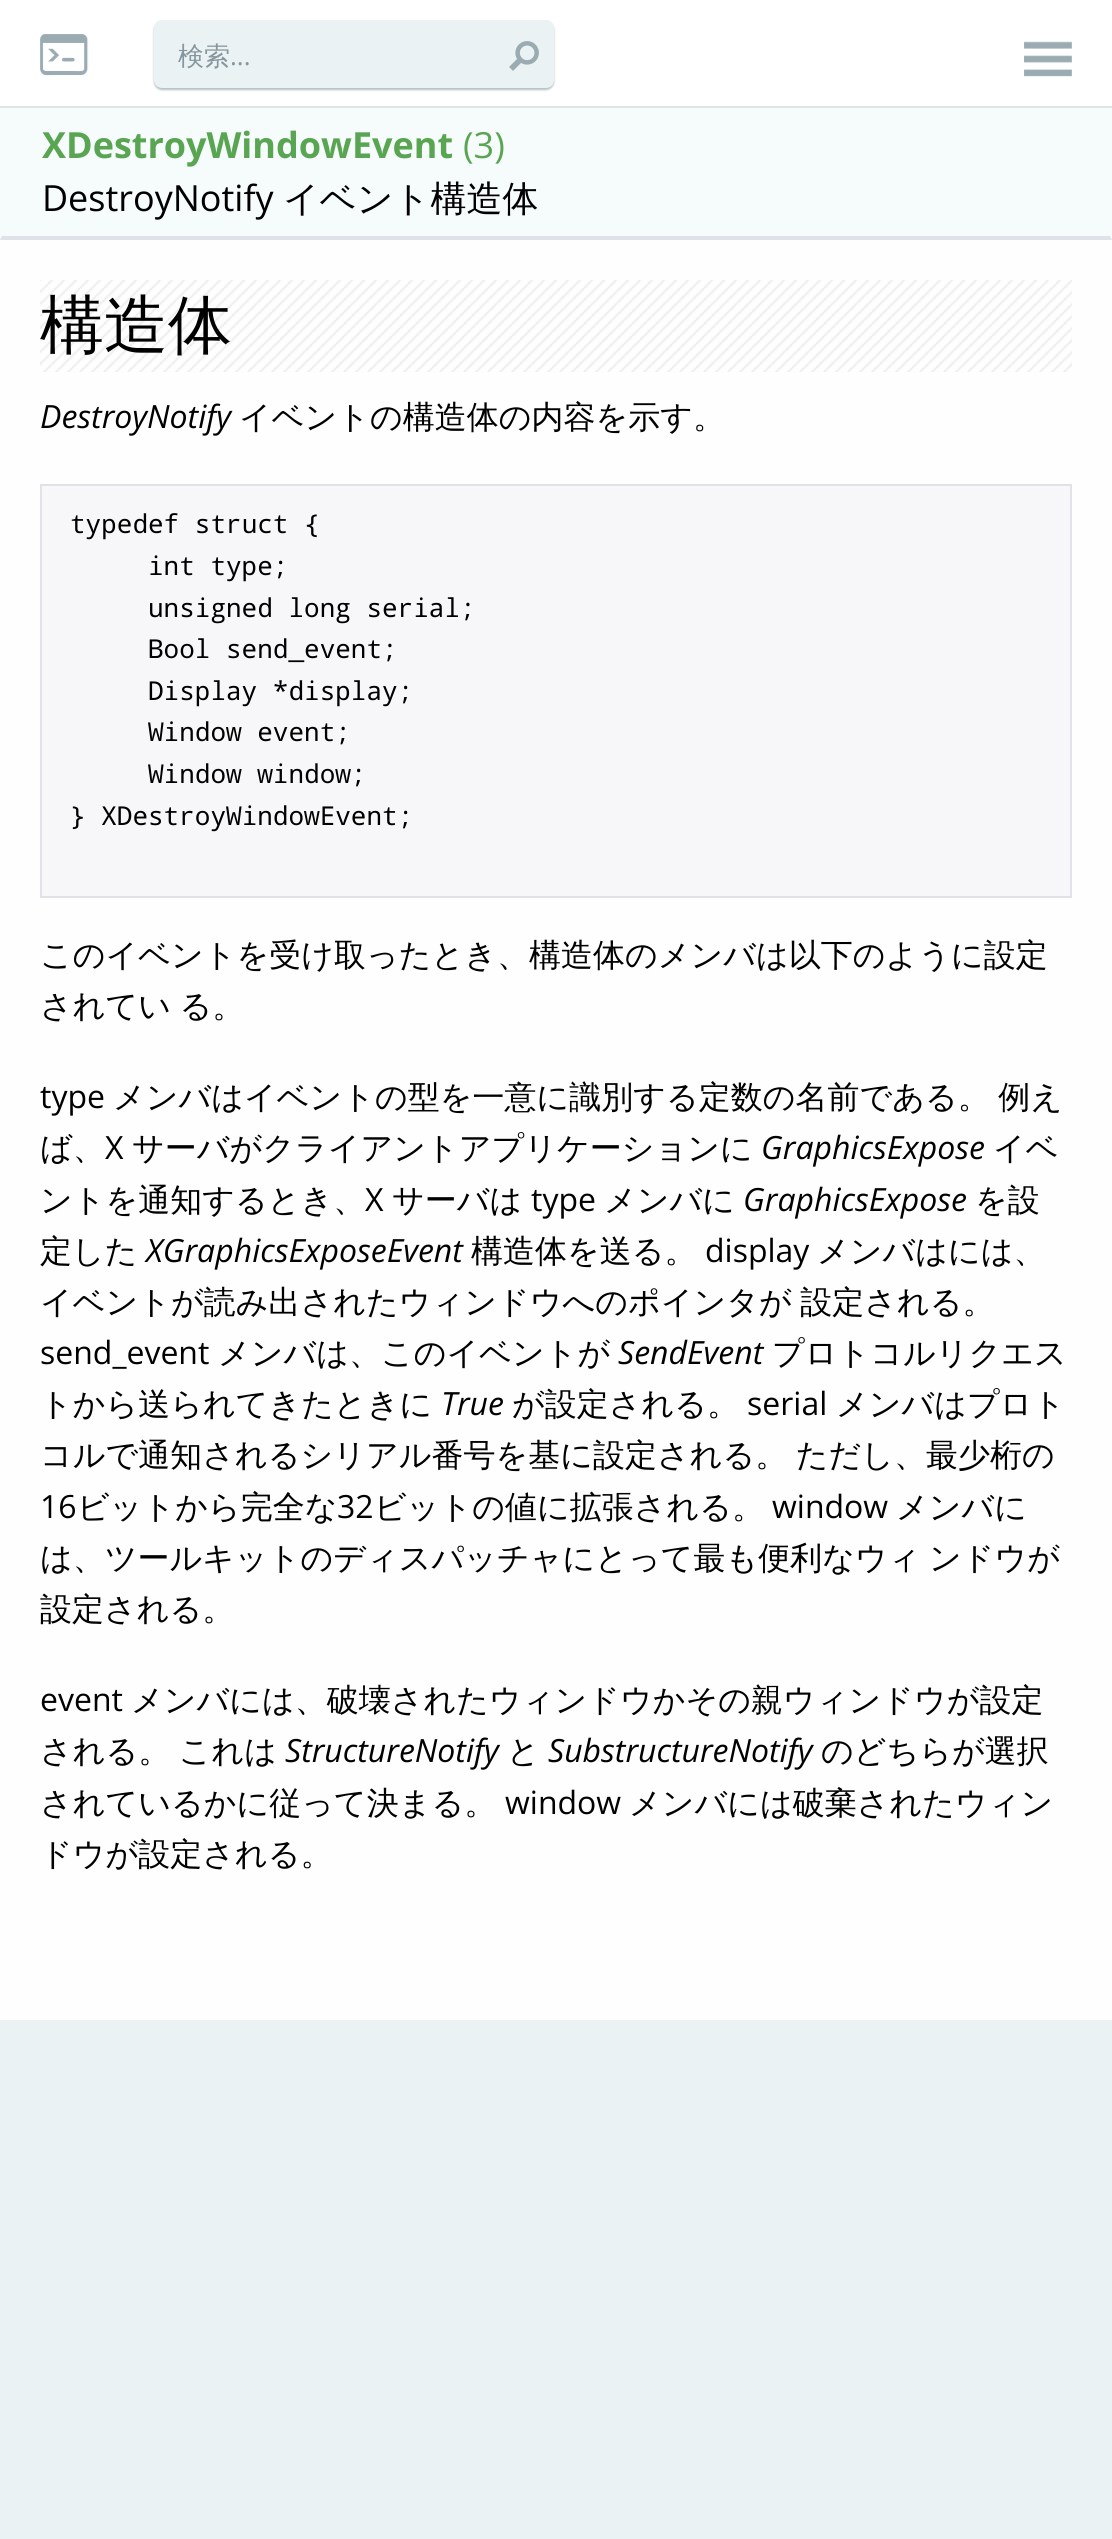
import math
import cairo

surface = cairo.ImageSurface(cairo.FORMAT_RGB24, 1112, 2539)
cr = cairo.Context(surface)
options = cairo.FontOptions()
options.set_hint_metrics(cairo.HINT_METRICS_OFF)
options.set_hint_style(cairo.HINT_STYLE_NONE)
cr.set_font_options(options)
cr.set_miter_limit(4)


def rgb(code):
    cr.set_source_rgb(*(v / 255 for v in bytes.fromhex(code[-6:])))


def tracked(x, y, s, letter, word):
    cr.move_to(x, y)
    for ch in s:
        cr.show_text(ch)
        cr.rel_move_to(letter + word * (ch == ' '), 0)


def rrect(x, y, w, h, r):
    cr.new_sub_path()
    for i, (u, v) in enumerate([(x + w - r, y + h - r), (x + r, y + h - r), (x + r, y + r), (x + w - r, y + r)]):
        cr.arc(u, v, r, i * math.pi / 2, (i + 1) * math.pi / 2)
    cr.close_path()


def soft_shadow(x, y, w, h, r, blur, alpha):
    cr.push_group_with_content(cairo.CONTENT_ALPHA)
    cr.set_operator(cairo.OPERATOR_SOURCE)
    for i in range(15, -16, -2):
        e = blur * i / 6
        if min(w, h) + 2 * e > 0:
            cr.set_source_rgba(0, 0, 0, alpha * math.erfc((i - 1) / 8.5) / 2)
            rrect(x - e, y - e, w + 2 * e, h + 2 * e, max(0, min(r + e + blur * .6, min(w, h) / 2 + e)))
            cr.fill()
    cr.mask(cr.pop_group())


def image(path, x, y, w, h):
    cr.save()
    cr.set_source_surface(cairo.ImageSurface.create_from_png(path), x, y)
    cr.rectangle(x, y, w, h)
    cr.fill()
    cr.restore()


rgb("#eaf2f4")
cr.paint()
rgb("#ffffff")
cr.rectangle(0, 0, 1112, 106)
cr.fill()
rgb("#dce5e7")
cr.rectangle(0, 106, 1112, 2)
cr.fill()
image("img/1.png", 40, 34, 49, 42)
rgb("#062f37")
soft_shadow(154, 22, 400, 68, 8, 1, 0.3)
rgb("#eaf2f4")
rrect(154, 20, 400, 68, 8)
cr.fill()
image("img/2.png", 509, 41, 30, 30)
image("img/3.png", 1024, 41, 48, 36)
rgb("#fefefe")
cr.rectangle(0, 240, 1112, 1780)
cr.fill()
rgb("#f6fbfc")
cr.rectangle(0, 108, 1112, 132)
cr.fill()
rgb("#dfe3e9")
cr.new_path()
cr.move_to(1112, 240)
cr.line_to(0, 240)
cr.line_to(2, 236)
cr.line_to(1110, 236)
cr.close_path()
cr.fill()
image("img/4.png", 40, 280, 1032, 92)
rgb("#f7f7f9")
cr.rectangle(41, 485, 1030, 412)
cr.fill_preserve()
rgb("#e1e1e8")
cr.stroke()
cr.select_font_face("WenQuanYi Zen Hei Medium")
cr.set_font_size(26)
rgb("#86969d")
cr.move_to(178, 65)
cr.show_text("検索")
cr.select_font_face("Open Sans")
cr.move_to(230, 65)
cr.show_text("...")
cr.select_font_face("Open Sans", cairo.FONT_SLANT_NORMAL, cairo.FONT_WEIGHT_BOLD)
cr.set_font_size(36)
rgb("#59a552")
cr.move_to(42, 158)
cr.show_text("XDestroyWindowEvent")
cr.select_font_face("Open Sans")
cr.move_to(463, 158)
cr.show_text("(3)")
rgb("#000000")
cr.move_to(42, 211)
cr.show_text("DestroyNotify")
cr.select_font_face("WenQuanYi Zen Hei Medium")
cr.move_to(283, 211)
cr.show_text("イベント構造体")
cr.set_font_size(64)
cr.move_to(40, 347)
cr.show_text("構造体")
cr.select_font_face("Open Sans", cairo.FONT_SLANT_ITALIC)
cr.set_font_size(32)
cr.move_to(40, 428)
cr.show_text("DestroyNotify")
cr.select_font_face("WenQuanYi Zen Hei Medium")
cr.move_to(239, 428)
cr.show_text("イベントの構造体の内容を示す。")
cr.select_font_face("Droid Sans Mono")
cr.set_font_size(26)
for x, y, s in [
    (70, 533, "typedef struct {"),
    (148, 575, "int type;"),
    (148, 617, "unsigned long serial;"),
    (148, 658, "Bool send_event;"),
    (148, 700, "Display *display;"),
    (148, 741, "Window event;"),
    (148, 783, "Window window;"),
    (70, 825, "} XDestroyWindowEvent;"),
]:
    cr.move_to(x, y)
    cr.show_text(s)
cr.select_font_face("WenQuanYi Zen Hei Medium")
cr.set_font_size(32)
cr.move_to(40, 966)
cr.show_text("このイベントを受け取ったとき、構造体のメンバは以下のように設定")
tracked(40, 1017, "されてい る。", 0, -1)
cr.select_font_face("Open Sans")
cr.move_to(40, 1108)
cr.show_text("type")
cr.select_font_face("WenQuanYi Zen Hei Medium")
tracked(113, 1108, "メンバはイベントの型を一意に識別する定数の名前である。 例え", 0, -1)
cr.move_to(40, 1159)
cr.show_text("ば、")
cr.select_font_face("Open Sans")
cr.move_to(105, 1159)
cr.show_text("X")
cr.select_font_face("WenQuanYi Zen Hei Medium")
cr.move_to(132, 1159)
cr.show_text("サーバがクライアントアプリケーションに")
cr.select_font_face("Open Sans", cairo.FONT_SLANT_ITALIC)
cr.move_to(761, 1159)
cr.show_text("GraphicsExpose")
cr.select_font_face("WenQuanYi Zen Hei Medium")
cr.move_to(993, 1159)
cr.show_text("イベ")
cr.move_to(40, 1211)
cr.show_text("ントを通知するとき、")
cr.select_font_face("Open Sans")
cr.move_to(365, 1211)
cr.show_text("X")
cr.select_font_face("WenQuanYi Zen Hei Medium")
cr.move_to(392, 1211)
cr.show_text("サーバは")
cr.select_font_face("Open Sans")
cr.move_to(531, 1211)
cr.show_text("type")
cr.select_font_face("WenQuanYi Zen Hei Medium")
cr.move_to(604, 1211)
cr.show_text("メンバに")
cr.select_font_face("Open Sans", cairo.FONT_SLANT_ITALIC)
cr.move_to(743, 1211)
cr.show_text("GraphicsExpose")
cr.select_font_face("WenQuanYi Zen Hei Medium")
cr.move_to(975, 1211)
cr.show_text("を設")
cr.move_to(40, 1262)
cr.show_text("定した")
cr.select_font_face("Open Sans", cairo.FONT_SLANT_ITALIC)
cr.move_to(146, 1262)
cr.show_text("XGraphicsExposeEvent")
cr.select_font_face("WenQuanYi Zen Hei Medium")
cr.move_to(471, 1262)
cr.show_text("構造体を送る。")
cr.select_font_face("Open Sans")
cr.move_to(705, 1262)
cr.show_text("display")
cr.select_font_face("WenQuanYi Zen Hei Medium")
cr.move_to(817, 1262)
cr.show_text("メンバはには、")
tracked(40, 1313, "イベントが読み出されたウィンドウへのポインタが 設定される。", 0, -1)
cr.select_font_face("Open Sans")
cr.move_to(40, 1364)
cr.show_text("send_event")
cr.select_font_face("WenQuanYi Zen Hei Medium")
cr.move_to(218, 1364)
cr.show_text("メンバは、このイベントが")
cr.select_font_face("Open Sans", cairo.FONT_SLANT_ITALIC)
cr.move_to(618, 1364)
cr.show_text("SendEvent")
cr.select_font_face("WenQuanYi Zen Hei Medium")
cr.move_to(772, 1364)
cr.show_text("プロトコルリクエス")
cr.move_to(40, 1415)
cr.show_text("トから送られてきたときに")
cr.select_font_face("Open Sans", cairo.FONT_SLANT_ITALIC)
cr.move_to(441, 1415)
cr.show_text("True")
cr.select_font_face("WenQuanYi Zen Hei Medium")
cr.move_to(512, 1415)
cr.show_text("が設定される。")
cr.select_font_face("Open Sans")
cr.move_to(747, 1415)
cr.show_text("serial")
cr.select_font_face("WenQuanYi Zen Hei Medium")
cr.move_to(836, 1415)
cr.show_text("メンバはプロト")
tracked(40, 1466, "コルで通知されるシリアル番号を基に設定される。 ただし、最少桁の", 0, -1)
cr.select_font_face("Open Sans")
cr.move_to(40, 1518)
cr.show_text("16")
cr.select_font_face("WenQuanYi Zen Hei Medium")
cr.move_to(77, 1518)
cr.show_text("ビットから完全な")
cr.select_font_face("Open Sans")
cr.move_to(337, 1518)
cr.show_text("32")
cr.select_font_face("WenQuanYi Zen Hei Medium")
cr.move_to(374, 1518)
cr.show_text("ビットの値に拡張される。")
cr.select_font_face("Open Sans")
cr.move_to(772, 1518)
cr.show_text("window")
cr.select_font_face("WenQuanYi Zen Hei Medium")
cr.move_to(896, 1518)
cr.show_text("メンバに")
tracked(40, 1569, "は、ツールキットのディスパッチャにとって最も便利なウィ ンドウが", 0, -1)
cr.move_to(40, 1620)
cr.show_text("設定される。")
cr.select_font_face("Open Sans")
cr.move_to(40, 1711)
cr.show_text("event")
cr.select_font_face("WenQuanYi Zen Hei Medium")
cr.move_to(131, 1711)
cr.show_text("メンバには、破壊されたウィンドウかその親ウィンドウが設定")
tracked(40, 1762, "される。 これは", 0, -1)
cr.select_font_face("Open Sans", cairo.FONT_SLANT_ITALIC)
cr.move_to(285, 1762)
cr.show_text("StructureNotify")
cr.select_font_face("WenQuanYi Zen Hei Medium")
cr.move_to(507, 1762)
cr.show_text("と")
cr.select_font_face("Open Sans", cairo.FONT_SLANT_ITALIC)
cr.move_to(548, 1762)
cr.show_text("SubstructureNotify")
cr.select_font_face("WenQuanYi Zen Hei Medium")
cr.move_to(821, 1762)
cr.show_text("のどちらが選択")
cr.move_to(40, 1814)
cr.show_text("されているかに従って決まる。")
cr.select_font_face("Open Sans")
cr.move_to(505, 1814)
cr.show_text("window")
cr.select_font_face("WenQuanYi Zen Hei Medium")
cr.move_to(629, 1814)
cr.show_text("メンバには破棄されたウィン")
cr.move_to(40, 1865)
cr.show_text("ドウが設定される。")
surface.write_to_png("page.png")
